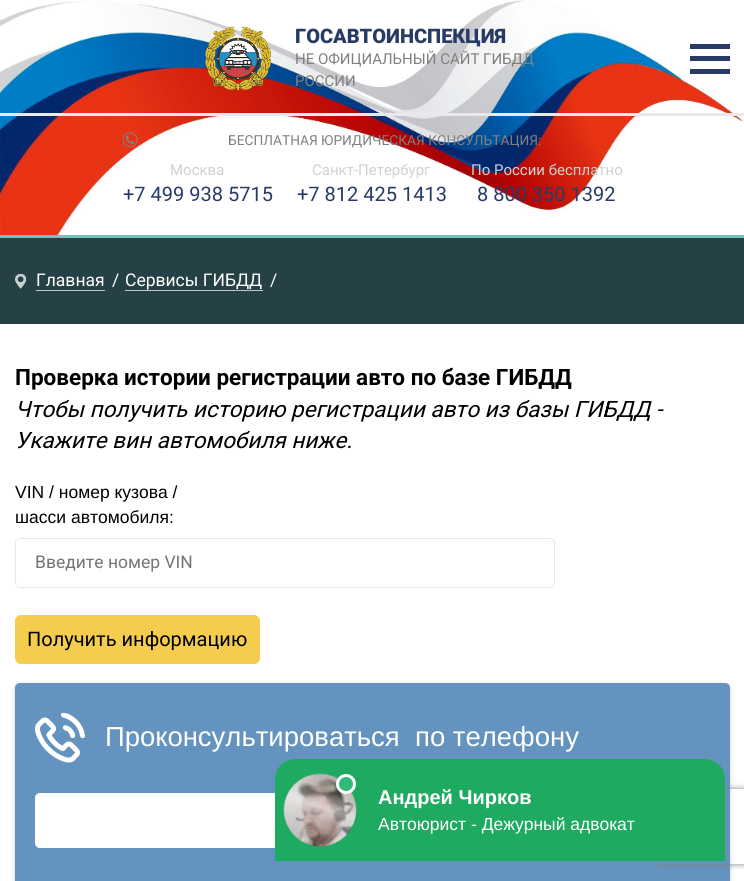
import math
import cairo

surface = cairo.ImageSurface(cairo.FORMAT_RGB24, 744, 881)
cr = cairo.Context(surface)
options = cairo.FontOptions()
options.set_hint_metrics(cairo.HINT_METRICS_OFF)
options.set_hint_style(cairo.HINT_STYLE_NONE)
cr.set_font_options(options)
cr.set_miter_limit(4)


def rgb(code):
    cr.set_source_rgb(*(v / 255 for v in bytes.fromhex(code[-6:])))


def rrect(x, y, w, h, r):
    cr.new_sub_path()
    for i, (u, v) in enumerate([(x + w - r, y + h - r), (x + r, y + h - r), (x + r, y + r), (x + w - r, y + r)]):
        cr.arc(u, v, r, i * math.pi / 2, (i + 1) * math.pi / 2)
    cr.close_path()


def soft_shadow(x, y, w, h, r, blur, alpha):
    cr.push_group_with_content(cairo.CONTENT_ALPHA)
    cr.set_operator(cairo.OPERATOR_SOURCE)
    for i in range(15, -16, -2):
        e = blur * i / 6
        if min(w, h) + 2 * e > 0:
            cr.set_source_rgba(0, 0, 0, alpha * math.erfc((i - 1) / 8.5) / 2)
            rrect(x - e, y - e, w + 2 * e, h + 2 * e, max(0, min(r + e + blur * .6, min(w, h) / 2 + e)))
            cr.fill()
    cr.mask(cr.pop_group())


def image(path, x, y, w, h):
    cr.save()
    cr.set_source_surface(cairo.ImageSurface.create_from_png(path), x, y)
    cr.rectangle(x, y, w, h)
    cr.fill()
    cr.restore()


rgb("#ffffff")
cr.paint()
image("img/1.png", 0, 0, 744, 235)
rgb("#75c1bd")
cr.rectangle(0, 235, 744, 3)
cr.fill()
image("img/2.png", 205, 26, 67, 65)
rgb("#e9e9e9")
cr.rectangle(0, 113, 744, 3)
cr.fill()
image("img/3.png", 123, 132, 15, 16)
for x, y, w, h, color in [
    (690, 44, 40, 5, "#283b66"),
    (690, 56, 40, 5, "#283b66"),
    (690, 69, 40, 5, "#283b66"),
    (0, 238, 744, 86, "#264145"),
]:
    rgb(color)
    cr.rectangle(x, y, w, h)
    cr.fill()
image("img/4.png", 15, 274, 11, 15)
rgb("#bec6c7")
cr.rectangle(36, 290, 69, 1)
cr.fill()
cr.rectangle(125, 290, 138, 1)
cr.fill()
rrect(15.5, 538.5, 539, 49, 4.5)
rgb("#e8e8e8")
cr.set_line_width(1)
cr.stroke()
rgb("#f4cd4f")
rrect(15, 615, 245, 49, 6)
cr.fill()
rgb("#000000")
soft_shadow(15, 684, 715, 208, 5, 2, 0.2)
rgb("#6493c0")
cr.new_path()
cr.move_to(20, 683)
cr.line_to(725, 683)
cr.curve_to(728, 683, 730, 685, 730, 688)
cr.line_to(730, 878)
cr.line_to(15, 878)
cr.line_to(15, 688)
cr.curve_to(15, 685, 17, 683, 20, 683)
cr.close_path()
cr.fill()
image("img/5.png", 35, 713, 50, 50)
rgb("#ffffff")
rrect(35, 793, 675, 55, 5)
cr.fill()
rgb("#6493c0")
cr.rectangle(15, 878, 715, 3)
cr.fill()
cr.save()
cr.set_fill_rule(cairo.FILL_RULE_EVEN_ODD)
cr.new_path()
cr.move_to(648, 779)
cr.line_to(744, 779)
cr.line_to(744, 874)
cr.line_to(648, 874)
cr.close_path()
cr.move_to(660.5, 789)
cr.line_to(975.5, 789)
cr.curve_to(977, 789, 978, 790, 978, 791.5)
cr.line_to(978, 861.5)
cr.curve_to(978, 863, 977, 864, 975.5, 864)
cr.line_to(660.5, 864)
cr.curve_to(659, 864, 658, 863, 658, 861.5)
cr.line_to(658, 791.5)
cr.curve_to(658, 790, 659, 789, 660.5, 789)
cr.close_path()
cr.clip()
rgb("#808080")
soft_shadow(658, 789, 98, 75, 2.5, 3, 1)
cr.restore()
rgb("#1eaa61")
cr.new_path()
cr.move_to(295, 759)
cr.line_to(705, 759)
cr.curve_to(716, 759, 725, 768, 725, 779)
cr.line_to(725, 861)
cr.line_to(275, 861)
cr.line_to(275, 779)
cr.curve_to(275, 768, 284, 759, 295, 759)
cr.close_path()
cr.fill()
image("img/6.png", 283, 773, 74, 74)
gradient = cairo.LinearGradient(332, 780, 308, 848)
gradient.add_color_stop_rgba(0, 1, 1, 1, 0)
gradient.add_color_stop_rgba(0.4, 1, 1, 1, 0.6)
gradient.add_color_stop_rgba(0.6, 1, 1, 1, 0.36)
gradient.add_color_stop_rgba(1, 1, 1, 1, 0)
cr.set_source(gradient)
cr.new_path()
cr.move_to(316, 774)
cr.line_to(347, 786)
cr.curve_to(352, 792, 356, 801, 356, 810)
cr.curve_to(356, 830, 340, 846, 320, 846)
cr.curve_to(300, 846, 284, 830, 284, 810)
cr.curve_to(284, 792, 298, 776, 316, 774)
cr.close_path()
cr.fill()
rgb("#31b978")
cr.arc(346, 784, 8.5, 0, 2 * math.pi)
cr.fill_preserve()
rgb("#ffffff")
cr.set_line_width(3)
cr.stroke()
cr.select_font_face("Roboto Black")
cr.set_font_size(20)
rgb("#283b66")
cr.move_to(295, 43)
cr.show_text("ГОСАВТОИНСПЕКЦИЯ")
cr.select_font_face("Roboto")
cr.set_font_size(15)
rgb("#808080")
cr.move_to(295, 64)
cr.show_text("НЕ ОФИЦИАЛЬНЫЙ САЙТ ГИБДД")
cr.move_to(295, 86)
cr.show_text("РОССИИ")
cr.set_font_size(13.75)
cr.move_to(228, 145)
cr.show_text("БЕСПЛАТНАЯ ЮРИДИЧЕСКАЯ КОНСУЛЬТАЦИЯ:")
cr.set_font_size(15)
rgb("#d1d1d1")
cr.move_to(170, 175)
cr.show_text("Москва")
cr.set_font_size(20)
rgb("#283b66")
cr.move_to(123, 201)
cr.show_text("+7 499 938 5715")
cr.set_font_size(15)
rgb("#d1d1d1")
cr.move_to(312, 175)
cr.show_text("Санкт-Петербург")
cr.set_font_size(20)
rgb("#283b66")
cr.move_to(297, 201)
cr.show_text("+7 812 425 1413")
cr.set_font_size(15)
rgb("#d1d1d1")
cr.move_to(471, 175)
cr.show_text("По России бесплатно")
cr.set_font_size(20)
rgb("#283b66")
cr.move_to(477, 201)
cr.show_text("8 800 350 1392")
cr.set_font_size(17.5)
rgb("#ffffff")
for x, y, s in [
    (36, 286, "Главная"),
    (112, 286, "/"),
    (125, 286, "Сервисы ГИБДД"),
    (270, 286, "/"),
]:
    cr.move_to(x, y)
    cr.show_text(s)
cr.select_font_face("Roboto", cairo.FONT_SLANT_NORMAL, cairo.FONT_WEIGHT_BOLD)
cr.set_font_size(22.5)
rgb("#000000")
cr.move_to(15, 385)
cr.show_text("Проверка истории регистрации авто по базе ГИБДД")
cr.select_font_face("Roboto", cairo.FONT_SLANT_ITALIC)
cr.move_to(15, 417)
cr.show_text("Чтобы получить историю регистрации авто из базы ГИБДД -")
cr.move_to(15, 448)
cr.show_text("Укажите вин автомобиля ниже.")
cr.select_font_face("Liberation Sans")
cr.set_font_size(17.5)
cr.move_to(15, 498)
cr.show_text("VIN / номер кузова /")
cr.move_to(15, 523)
cr.show_text("шасси автомобиля:")
cr.select_font_face("Roboto")
rgb("#757575")
cr.move_to(35, 568)
cr.show_text("Введите номер VIN")
cr.set_font_size(20)
rgb("#000000")
cr.move_to(27, 646)
cr.show_text("Получить информацию")
cr.select_font_face("Liberation Sans")
cr.set_font_size(27.5)
rgb("#ffffff")
cr.move_to(105, 746)
cr.show_text("Проконсультироваться")
cr.move_to(415, 746)
cr.show_text("по телефону")
cr.select_font_face("Liberation Sans", cairo.FONT_SLANT_NORMAL, cairo.FONT_WEIGHT_BOLD)
cr.set_font_size(20)
cr.move_to(378, 804)
cr.show_text("Андрей Чирков")
cr.select_font_face("Liberation Sans")
cr.set_font_size(17.5)
cr.move_to(378, 830)
cr.show_text("Автоюрист - Дежурный адвокат")
surface.write_to_png("page.png")
